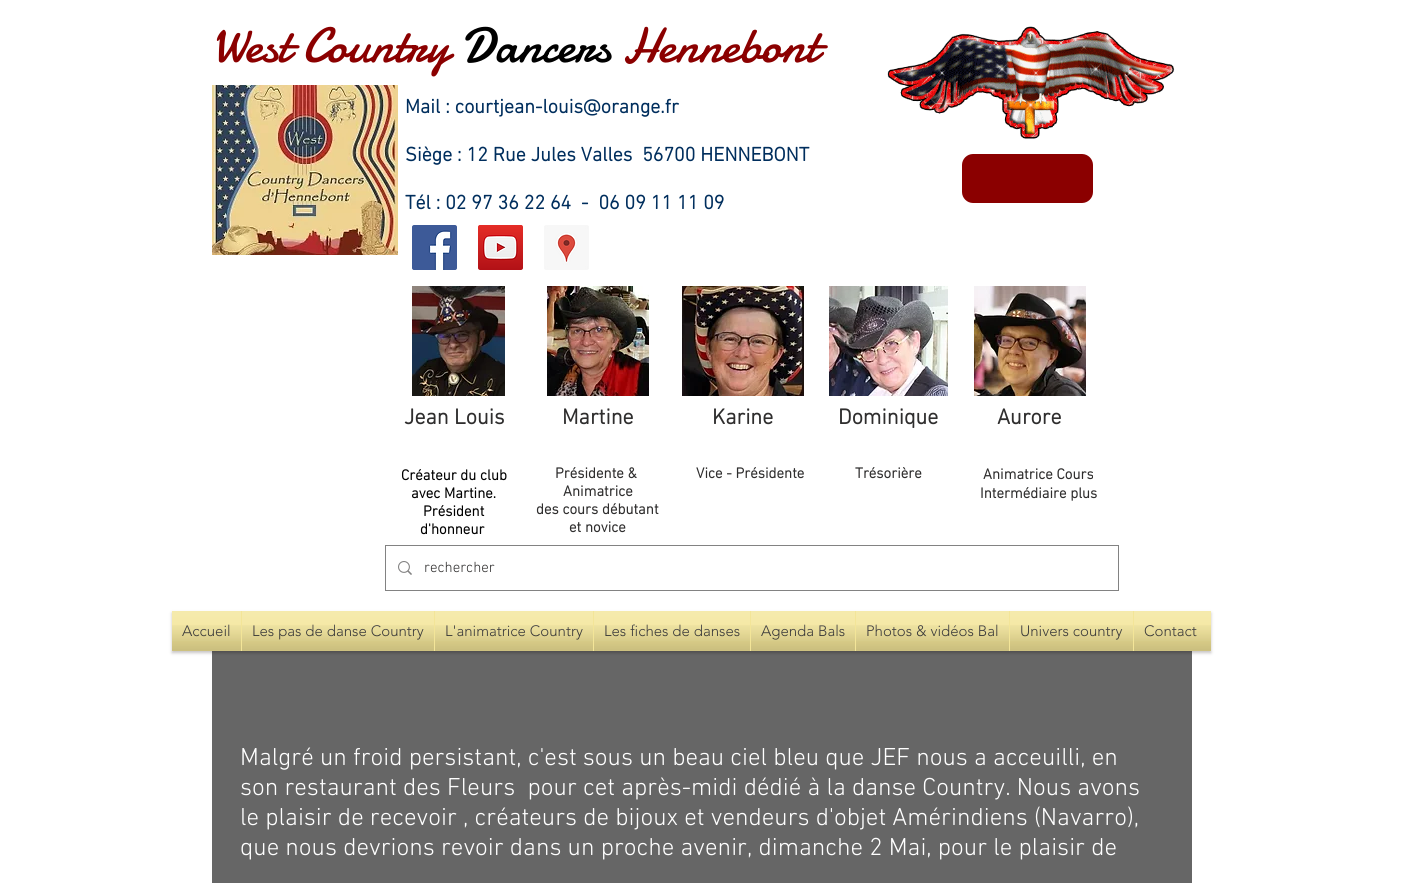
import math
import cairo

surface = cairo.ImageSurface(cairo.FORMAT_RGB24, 1404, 883)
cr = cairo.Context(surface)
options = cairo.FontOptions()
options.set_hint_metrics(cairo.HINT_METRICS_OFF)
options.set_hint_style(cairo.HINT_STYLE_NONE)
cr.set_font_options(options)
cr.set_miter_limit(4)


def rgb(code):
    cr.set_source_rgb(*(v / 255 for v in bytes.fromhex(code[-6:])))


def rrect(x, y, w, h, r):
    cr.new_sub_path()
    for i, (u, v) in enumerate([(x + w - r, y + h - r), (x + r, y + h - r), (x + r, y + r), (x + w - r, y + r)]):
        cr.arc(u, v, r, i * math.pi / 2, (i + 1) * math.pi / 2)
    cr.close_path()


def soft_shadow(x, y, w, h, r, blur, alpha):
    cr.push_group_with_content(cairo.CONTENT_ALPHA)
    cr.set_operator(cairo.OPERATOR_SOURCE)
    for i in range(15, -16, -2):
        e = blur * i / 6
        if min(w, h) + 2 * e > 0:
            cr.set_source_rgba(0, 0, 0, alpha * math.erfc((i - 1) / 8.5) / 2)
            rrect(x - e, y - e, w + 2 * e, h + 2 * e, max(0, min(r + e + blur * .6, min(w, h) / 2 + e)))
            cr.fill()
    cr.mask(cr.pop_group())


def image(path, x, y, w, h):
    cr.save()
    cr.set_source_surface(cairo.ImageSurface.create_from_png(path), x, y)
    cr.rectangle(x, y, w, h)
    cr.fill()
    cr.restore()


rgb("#ffffff")
cr.paint()
image("img/1.png", 887, 26, 288, 113)
image("img/2.png", 212, 85, 186, 170)
rgb("#8b0000")
cr.new_path()
cr.move_to(1082, 203)
cr.line_to(973, 203)
cr.curve_to(967, 203, 962, 198, 962, 192)
cr.line_to(962, 165)
cr.curve_to(962, 159, 967, 154, 973, 154)
cr.line_to(1082, 154)
cr.curve_to(1088, 154, 1093, 159, 1093, 165)
cr.line_to(1093, 192)
cr.curve_to(1093, 198, 1088, 203, 1082, 203)
cr.close_path()
cr.fill()
image("img/3.png", 412, 225, 45, 45)
image("img/4.png", 478, 225, 45, 45)
image("img/5.png", 544, 225, 45, 45)
cr.rectangle(385.5, 545.5, 733, 45)
rgb("#828282")
cr.set_line_width(1)
cr.stroke()
image("img/6.png", 398, 561, 14, 14)
image("img/7.png", 412, 286, 93, 110)
image("img/8.png", 547, 286, 102, 110)
image("img/9.png", 682, 286, 122, 110)
image("img/10.png", 829, 286, 119, 110)
image("img/11.png", 974, 286, 112, 110)
rgb("#a29e9e")
soft_shadow(172, 613, 1039, 40, 0, 1.5, 0.6)
rgb("#f3e598")
cr.rectangle(1207, 611, 4, 40)
cr.fill()
image("img/12.png", 1207, 611, 4, 30)
image("img/13.png", 1207, 625, 4, 26)
cr.rectangle(172, 611, 1035, 40)
cr.fill()
cr.set_source_rgba(0, 0, 0, 0.6)
cr.rectangle(212, 651, 980, 232)
cr.fill()
cr.select_font_face("Damion")
cr.set_font_size(50)
rgb("#8b0000")
cr.move_to(212, 62)
cr.show_text("West Country")
rgb("#000000")
cr.move_to(461, 62)
cr.show_text("Dancers")
rgb("#8b0000")
cr.move_to(623, 62)
cr.show_text("Hennebont")
cr.select_font_face("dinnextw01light", cairo.FONT_SLANT_NORMAL, cairo.FONT_WEIGHT_BOLD)
cr.set_font_size(20)
rgb("#002e5d")
for x, y, s in [
    (405, 113, "Mail : courtjean-louis@orange.fr"),
    (405, 161, "Siège : 12 Rue Jules Valles  56700 HENNEBONT"),
    (405, 209, "Tél : 02 97 36 22 64  -  06 09 11 11 09"),
]:
    cr.move_to(x, y)
    cr.show_text(s)
cr.select_font_face("dinnextw01light Light")
cr.set_font_size(15)
rgb("#2f2e2e")
cr.move_to(424, 572)
cr.show_text("rechercher")
cr.select_font_face("dinnextw01light", cairo.FONT_SLANT_NORMAL, cairo.FONT_WEIGHT_BOLD)
cr.set_font_size(22)
for x, y, s in [
    (404, 424, "Jean Louis"),
    (562, 424, "Martine"),
    (712, 424, "Karine"),
    (838, 424, "Dominique"),
    (997, 424, "Aurore"),
]:
    cr.move_to(x, y)
    cr.show_text(s)
cr.set_font_size(15)
rgb("#000000")
for x, y, s in [
    (401, 480, "Créateur du club"),
    (411, 498, "avec Martine."),
    (423, 516, "Président"),
    (420, 534, "d'honneur"),
]:
    cr.move_to(x, y)
    cr.show_text(s)
rgb("#2f2e2e")
for x, y, s in [
    (555, 478, "Présidente &"),
    (563, 496, "Animatrice"),
    (536, 514, "des cours débutant"),
    (569, 532, "et novice"),
    (696, 478, "Vice - Présidente"),
    (855, 478, "Trésorière"),
    (983, 479, "Animatrice Cours"),
    (980, 498, "Intermédiaire plus"),
]:
    cr.move_to(x, y)
    cr.show_text(s)
cr.select_font_face("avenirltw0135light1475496 Light")
cr.move_to(182, 636)
cr.show_text("Accueil")
image("img/14.png", 172, 611, 69, 30)
image("img/15.png", 172, 625, 69, 26)
cr.move_to(252, 636)
cr.show_text("Les pas de danse Country")
image("img/16.png", 242, 611, 192, 30)
image("img/17.png", 242, 625, 192, 26)
cr.move_to(445, 636)
cr.show_text("L'animatrice Country")
image("img/18.png", 435, 611, 158, 30)
image("img/19.png", 435, 625, 158, 26)
cr.move_to(604, 636)
cr.show_text("Les fiches de danses")
image("img/20.png", 594, 611, 156, 30)
image("img/21.png", 594, 625, 156, 26)
cr.move_to(761, 636)
cr.show_text("Agenda Bals")
image("img/22.png", 751, 611, 104, 30)
image("img/23.png", 751, 625, 104, 26)
cr.move_to(866, 636)
cr.show_text("Photos & vidéos Bal")
image("img/24.png", 856, 611, 153, 30)
image("img/25.png", 856, 625, 153, 26)
cr.move_to(1020, 636)
cr.show_text("Univers country")
image("img/26.png", 1010, 611, 123, 30)
image("img/27.png", 1010, 625, 123, 26)
cr.move_to(1144, 636)
cr.show_text("Contact")
image("img/28.png", 1134, 611, 73, 30)
image("img/29.png", 1134, 625, 73, 26)
cr.select_font_face("dinnextw01light Light")
cr.set_font_size(25)
rgb("#ffffff")
for x, y, s in [
    (240, 765, "Malgré un froid persistant, c'est sous un beau ciel bleu que JEF nous a acceuilli, en"),
    (240, 795, "son restaurant des Fleurs  pour cet après-midi dédié à la danse Country. Nous avons"),
    (240, 825, "le plaisir de recevoir , créateurs de bijoux et vendeurs d'objet Amérindiens (Navarro),"),
    (240, 855, "que nous devrions revoir dans un proche avenir, dimanche 2 Mai, pour le plaisir de"),
]:
    cr.move_to(x, y)
    cr.show_text(s)
surface.write_to_png("page.png")
